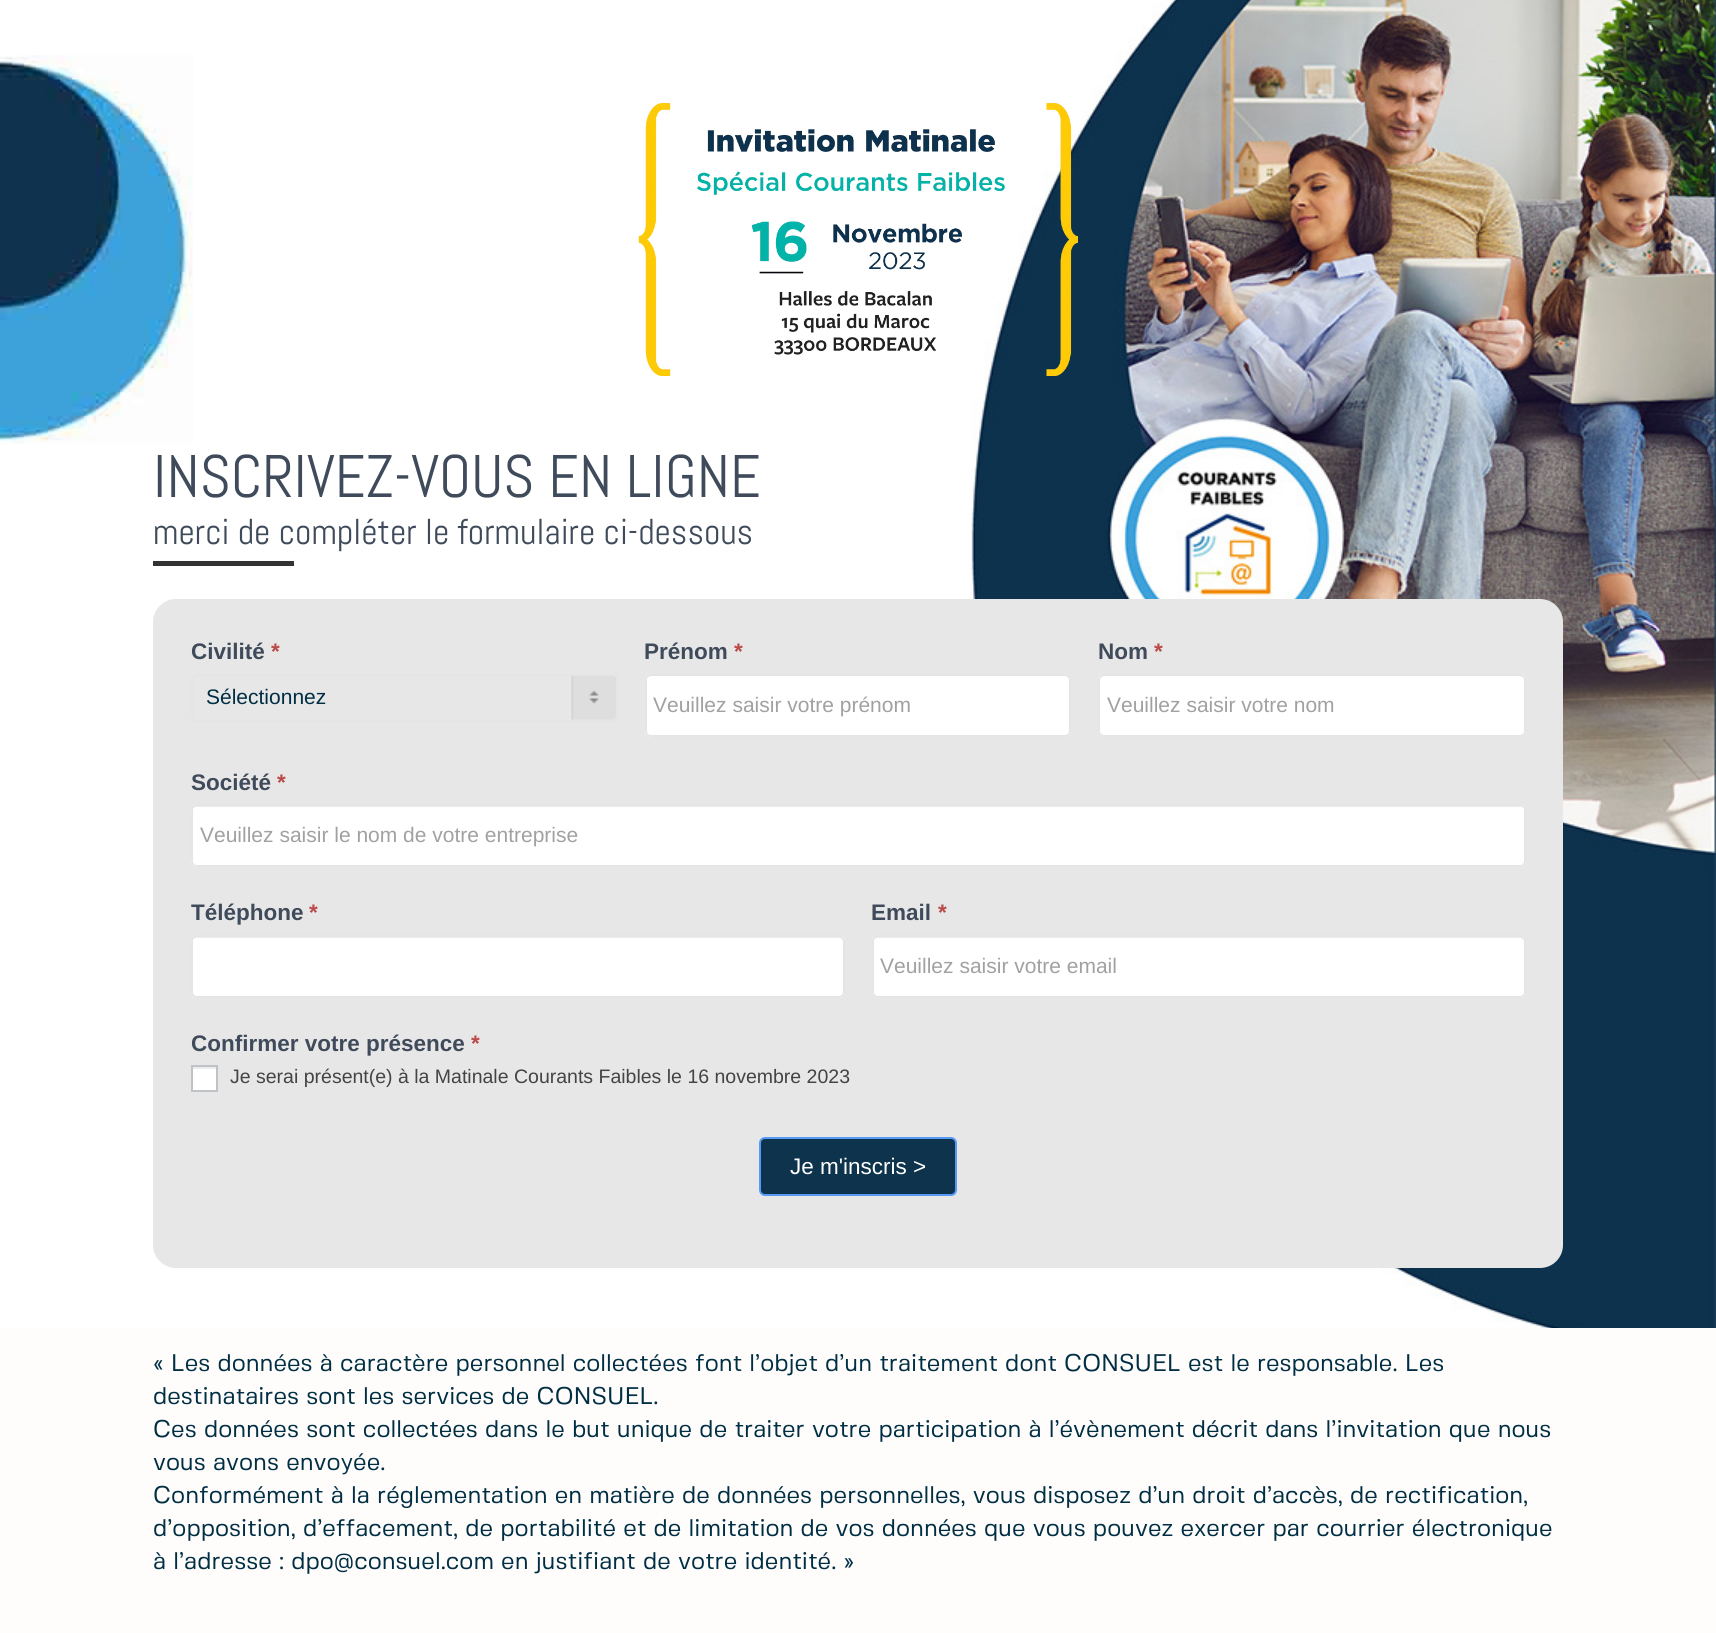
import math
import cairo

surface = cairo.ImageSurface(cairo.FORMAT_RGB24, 1716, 1633)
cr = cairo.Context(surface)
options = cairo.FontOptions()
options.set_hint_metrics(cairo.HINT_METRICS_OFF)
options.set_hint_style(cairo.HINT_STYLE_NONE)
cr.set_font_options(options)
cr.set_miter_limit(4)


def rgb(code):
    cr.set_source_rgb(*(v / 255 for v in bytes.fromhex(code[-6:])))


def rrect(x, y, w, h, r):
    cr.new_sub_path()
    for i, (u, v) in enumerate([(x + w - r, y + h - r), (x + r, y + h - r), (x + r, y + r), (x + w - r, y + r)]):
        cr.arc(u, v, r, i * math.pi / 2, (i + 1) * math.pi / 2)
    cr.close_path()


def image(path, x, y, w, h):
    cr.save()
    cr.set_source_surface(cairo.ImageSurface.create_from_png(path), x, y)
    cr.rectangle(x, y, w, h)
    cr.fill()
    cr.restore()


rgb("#ffffff")
cr.paint()
image("img/1.png", 971, 0, 745, 1328)
image("img/2.png", 0, 55, 193, 389)
image("img/3.png", 638, 103, 440, 273)
rgb("#333333")
cr.rectangle(153, 561, 141, 5)
cr.fill()
rgb("#e8e7e7")
rrect(153, 599, 1410, 669, 23)
cr.fill()
image("img/4.png", 571, 674, 46, 46)
cr.set_source_rgba(0, 0, 0, 0.07)
cr.new_path()
cr.move_to(196, 676)
cr.line_to(612, 676)
cr.curve_to(618, 676, 616, 691, 616, 693)
cr.line_to(616, 718)
cr.curve_to(617, 717, 617, 716, 617, 715)
cr.line_to(617, 680)
cr.curve_to(617, 677, 615, 675, 612, 675)
cr.line_to(197, 675)
cr.curve_to(194, 675, 192, 677, 192, 680)
cr.line_to(192, 681)
cr.curve_to(192, 679, 194, 676, 196, 676)
cr.close_path()
cr.fill()
rrect(192, 675, 425, 46, 5)
rgb("#e5e5e5")
cr.stroke()
rgb("#ffffff")
rrect(645, 674, 426, 63, 6)
cr.fill()
rgb("#ececec")
cr.new_path()
cr.move_to(651, 676)
cr.line_to(1065, 676)
cr.curve_to(1067, 676, 1070, 679, 1070, 681)
cr.line_to(1070, 680)
cr.curve_to(1070, 677, 1068, 675, 1065, 675)
cr.line_to(652, 675)
cr.curve_to(650, 675, 648, 676, 647, 678)
cr.curve_to(648, 677, 650, 676, 651, 676)
cr.close_path()
cr.fill()
rrect(646, 675, 424, 61, 5)
rgb("#e5e5e5")
cr.stroke()
rgb("#ffffff")
rrect(1098, 674, 428, 63, 6)
cr.fill()
rgb("#ececec")
cr.new_path()
cr.move_to(1104, 676)
cr.line_to(1520, 676)
cr.curve_to(1522, 676, 1524, 679, 1524, 681)
cr.curve_to(1524, 678, 1522, 675, 1519, 675)
cr.line_to(1105, 675)
cr.curve_to(1102, 675, 1100, 678, 1100, 681)
cr.curve_to(1100, 679, 1102, 676, 1104, 676)
cr.close_path()
cr.fill()
rrect(1099, 675, 426, 61, 5)
rgb("#e5e5e5")
cr.stroke()
rgb("#ffffff")
rrect(191, 804, 1335, 63, 6)
cr.fill()
rgb("#ececec")
cr.new_path()
cr.move_to(196, 807)
cr.line_to(1520, 807)
cr.curve_to(1522, 807, 1524, 809, 1524, 812)
cr.curve_to(1524, 809, 1522, 806, 1519, 806)
cr.line_to(197, 806)
cr.curve_to(194, 806, 192, 809, 192, 812)
cr.curve_to(192, 809, 194, 807, 196, 807)
cr.close_path()
cr.fill()
rrect(192, 805, 1333, 61, 5)
rgb("#e5e5e5")
cr.stroke()
rgb("#ffffff")
rrect(191, 935, 654, 63, 6)
cr.fill()
rgb("#ececec")
cr.new_path()
cr.move_to(196, 938)
cr.line_to(838, 938)
cr.curve_to(841, 938, 843, 940, 843, 942)
cr.line_to(843, 941)
cr.curve_to(843, 938, 841, 936, 838, 936)
cr.line_to(197, 936)
cr.curve_to(194, 936, 192, 938, 192, 941)
cr.line_to(192, 942)
cr.curve_to(192, 940, 194, 938, 196, 938)
cr.close_path()
cr.fill()
rrect(192, 936, 652, 61, 5)
rgb("#e5e5e5")
cr.stroke()
rgb("#ffffff")
rrect(872, 935, 654, 63, 6)
cr.fill()
rgb("#ececec")
cr.new_path()
cr.move_to(878, 938)
cr.line_to(1520, 938)
cr.curve_to(1522, 938, 1524, 940, 1524, 942)
cr.line_to(1524, 941)
cr.curve_to(1524, 938, 1522, 936, 1519, 936)
cr.line_to(878, 936)
cr.curve_to(875, 936, 873, 938, 873, 941)
cr.line_to(873, 942)
cr.curve_to(873, 940, 875, 938, 878, 938)
cr.close_path()
cr.fill()
rrect(873, 936, 652, 61, 5)
rgb("#e5e5e5")
cr.stroke()
rgb("#ffffff")
cr.rectangle(193, 1069, 23, 21)
cr.fill()
rgb("#ececec")
cr.rectangle(192, 1067, 24, 2)
cr.fill()
cr.rectangle(192, 1066, 25, 25)
rgb("#bfc3c8")
cr.stroke()
rgb("#0e334d")
rrect(760, 1138, 196, 57, 5)
cr.fill_preserve()
rgb("#579af6")
cr.stroke()
rgb("#fffcfc")
cr.rectangle(0, 1328, 1716, 305)
cr.fill()
cr.select_font_face("Abel")
cr.set_font_size(60)
rgb("#3f4b5b")
cr.move_to(153, 497)
cr.show_text("INSCRIVEZ-VOUS EN LIGNE")
cr.set_font_size(36)
cr.move_to(153, 544)
cr.show_text("merci de compléter le formulaire ci-dessous")
cr.select_font_face("Liberation Sans", cairo.FONT_SLANT_NORMAL, cairo.FONT_WEIGHT_BOLD)
cr.set_font_size(22.5)
cr.move_to(191, 659)
cr.show_text("Civilité")
rgb("#b94a48")
cr.move_to(271, 659)
cr.show_text("*")
cr.select_font_face("Liberation Sans")
cr.set_font_size(21)
rgb("#002f44")
cr.move_to(206, 704)
cr.show_text("Sélectionnez")
cr.select_font_face("Liberation Sans", cairo.FONT_SLANT_NORMAL, cairo.FONT_WEIGHT_BOLD)
cr.set_font_size(22.5)
rgb("#3f4b5b")
cr.move_to(644, 659)
cr.show_text("Prénom")
rgb("#b94a48")
cr.move_to(734, 659)
cr.show_text("*")
cr.select_font_face("Liberation Sans")
cr.set_font_size(21)
rgb("#a1a1a1")
cr.move_to(653, 712)
cr.show_text("Veuillez saisir votre prénom")
cr.select_font_face("Liberation Sans", cairo.FONT_SLANT_NORMAL, cairo.FONT_WEIGHT_BOLD)
cr.set_font_size(22.5)
rgb("#3f4b5b")
cr.move_to(1098, 659)
cr.show_text("Nom")
rgb("#b94a48")
cr.move_to(1154, 659)
cr.show_text("*")
cr.select_font_face("Liberation Sans")
cr.set_font_size(21)
rgb("#a1a1a1")
cr.move_to(1107, 712)
cr.show_text("Veuillez saisir votre nom")
cr.select_font_face("Liberation Sans", cairo.FONT_SLANT_NORMAL, cairo.FONT_WEIGHT_BOLD)
cr.set_font_size(22.5)
rgb("#3f4b5b")
cr.move_to(191, 790)
cr.show_text("Société")
rgb("#b94a48")
cr.move_to(277, 790)
cr.show_text("*")
cr.select_font_face("Liberation Sans")
cr.set_font_size(21)
rgb("#a1a1a1")
cr.move_to(200, 842)
cr.show_text("Veuillez saisir le nom de votre entreprise")
cr.select_font_face("Liberation Sans", cairo.FONT_SLANT_NORMAL, cairo.FONT_WEIGHT_BOLD)
cr.set_font_size(22.5)
rgb("#3f4b5b")
cr.move_to(191, 920)
cr.show_text("Téléphone")
rgb("#b94a48")
cr.move_to(309, 920)
cr.show_text("*")
rgb("#3f4b5b")
cr.move_to(871, 920)
cr.show_text("Email")
rgb("#b94a48")
cr.move_to(938, 920)
cr.show_text("*")
cr.select_font_face("Liberation Sans")
cr.set_font_size(21)
rgb("#a1a1a1")
cr.move_to(880, 973)
cr.show_text("Veuillez saisir votre email")
cr.select_font_face("Liberation Sans", cairo.FONT_SLANT_NORMAL, cairo.FONT_WEIGHT_BOLD)
cr.set_font_size(22.5)
rgb("#3f4b5b")
cr.move_to(191, 1051)
cr.show_text("Confirmer votre présence")
rgb("#b94a48")
cr.move_to(471, 1051)
cr.show_text("*")
cr.select_font_face("Liberation Sans")
cr.set_font_size(19.5)
rgb("#444444")
cr.move_to(230, 1083)
cr.show_text("Je serai présent(e) à la Matinale Courants Faibles le 16 novembre 2023")
cr.set_font_size(22.5)
rgb("#ffffff")
cr.move_to(790, 1174)
cr.show_text("Je m'inscris >")
cr.select_font_face("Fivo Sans")
cr.set_font_size(24)
rgb("#002f44")
for x, y, s in [
    (153, 1371, "« Les données à caractère personnel collectées font l’objet d’un traitement dont CONSUEL est le responsable. Les"),
    (153, 1404, "destinataires sont les services de CONSUEL."),
    (153, 1437, "Ces données sont collectées dans le but unique de traiter votre participation à l’évènement décrit dans l’invitation que nous"),
    (153, 1470, "vous avons envoyée."),
    (153, 1503, "Conformément à la réglementation en matière de données personnelles, vous disposez d’un droit d’accès, de rectification,"),
    (153, 1536, "d’opposition, d’effacement, de portabilité et de limitation de vos données que vous pouvez exercer par courrier électronique"),
    (153, 1569, "à l’adresse : dpo@consuel.com en justifiant de votre identité. »"),
]:
    cr.move_to(x, y)
    cr.show_text(s)
surface.write_to_png("page.png")
